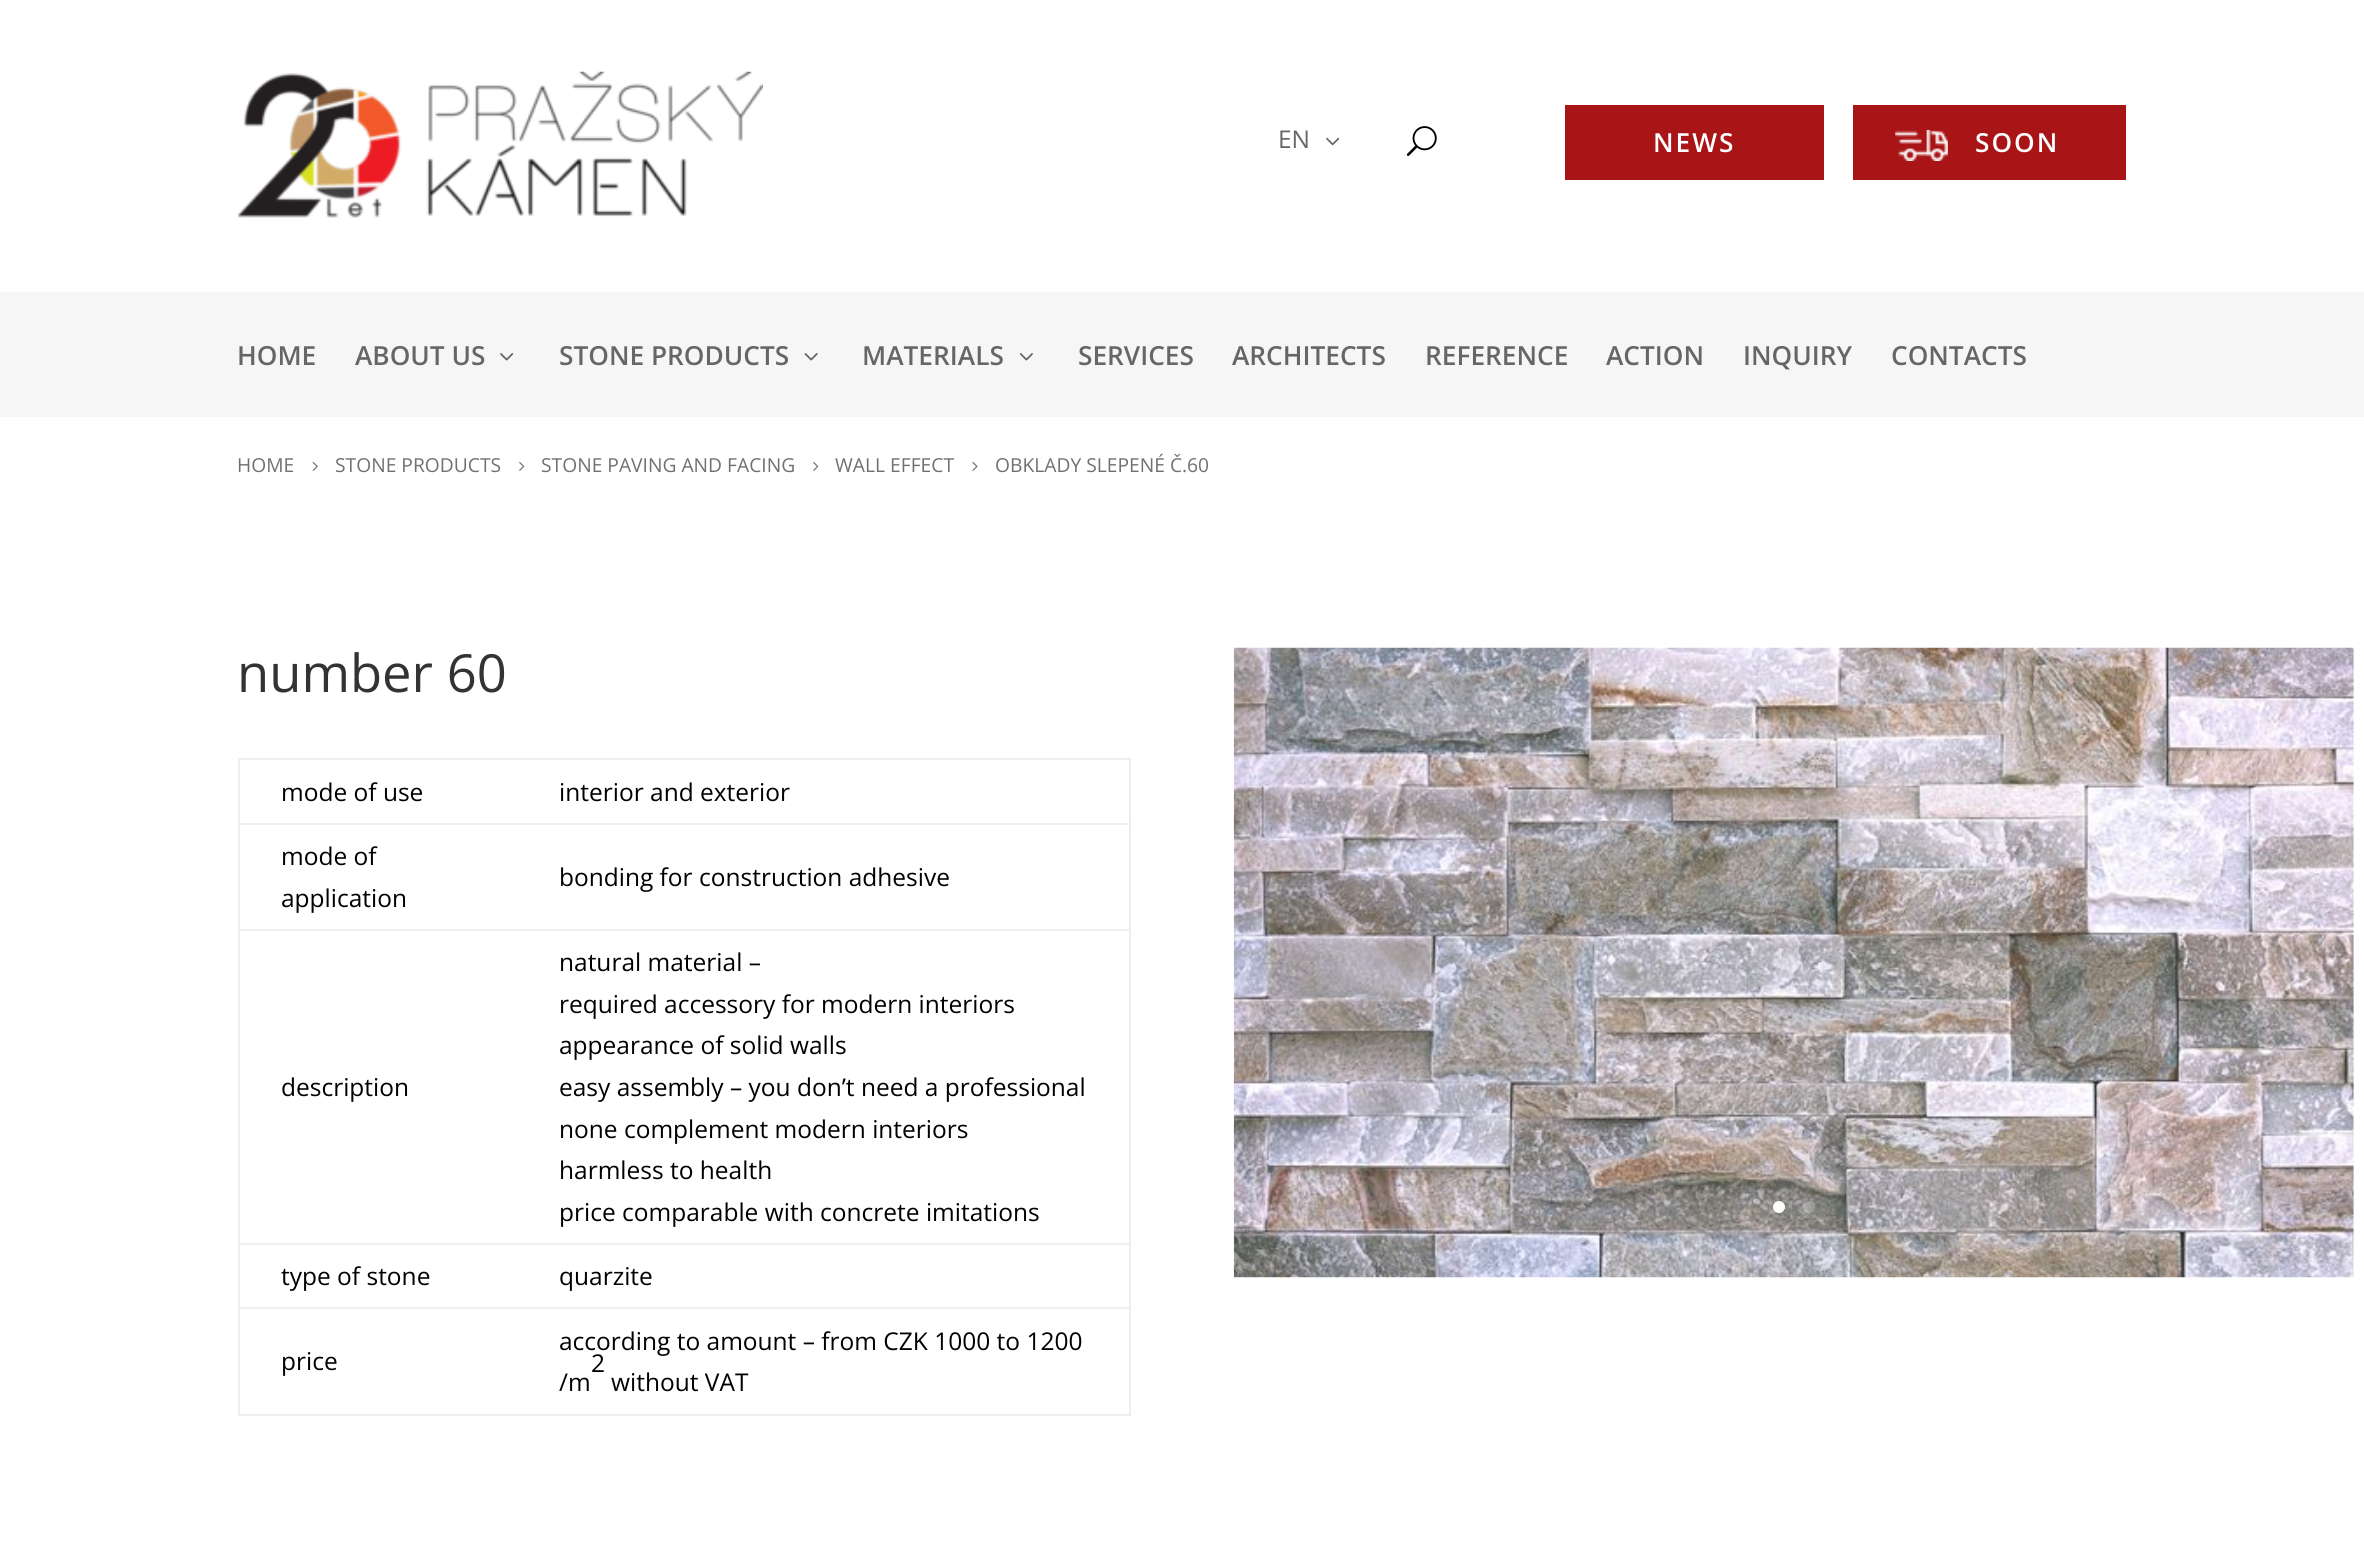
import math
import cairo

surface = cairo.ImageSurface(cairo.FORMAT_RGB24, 2364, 1550)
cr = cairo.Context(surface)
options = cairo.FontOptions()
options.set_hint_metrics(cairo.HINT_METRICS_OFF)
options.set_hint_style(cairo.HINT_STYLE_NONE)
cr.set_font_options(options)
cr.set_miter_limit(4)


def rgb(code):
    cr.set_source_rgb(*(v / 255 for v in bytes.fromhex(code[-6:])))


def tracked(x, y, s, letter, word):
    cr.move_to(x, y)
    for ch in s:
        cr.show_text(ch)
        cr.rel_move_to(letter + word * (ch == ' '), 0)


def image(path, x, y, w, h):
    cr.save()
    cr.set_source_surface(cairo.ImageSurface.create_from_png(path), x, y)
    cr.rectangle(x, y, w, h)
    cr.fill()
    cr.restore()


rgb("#ffffff")
cr.paint()
image("img/1.png", 238, 71, 525, 147)
image("img/2.png", 1326, 137, 14, 9)
image("img/3.png", 1406, 126, 31, 30)
rgb("#a91516")
cr.rectangle(1565, 105, 259, 75)
cr.fill()
cr.rectangle(1853, 105, 273, 75)
cr.fill()
image("img/4.png", 1895, 130, 53, 31)
rgb("#f6f6f6")
cr.rectangle(0, 292, 2364, 125)
cr.fill()
image("img/5.png", 500, 353, 14, 8)
image("img/6.png", 804, 353, 14, 8)
image("img/7.png", 1019, 353, 14, 8)
image("img/8.png", 312, 462, 6, 9)
image("img/9.png", 519, 462, 6, 9)
image("img/9.png", 813, 462, 6, 9)
image("img/10.png", 972, 462, 6, 9)
for x, y, w, h, color in [
    (238, 758, 893, 2, "#eeeeee"),
    (1129, 758, 2, 658, "#eeeeee"),
    (238, 1414, 893, 2, "#eeeeee"),
    (238, 758, 2, 658, "#eeeeee"),
    (238, 823, 893, 2, "#eeeeee"),
    (238, 929, 893, 2, "#eeeeee"),
    (238, 1243, 893, 2, "#eeeeee"),
    (238, 1307, 893, 2, "#eeeeee"),
]:
    rgb(color)
    cr.rectangle(x, y, w, h)
    cr.fill()
image("img/11.png", 1233, 647, 1121, 631)
rgb("#ffffff")
cr.arc(1779, 1207, 6, 0, 2 * math.pi)
cr.fill()
cr.set_source_rgba(1, 1, 1, 0.25)
cr.arc(1809, 1207, 6, 0, 2 * math.pi)
cr.fill()
cr.select_font_face("Open Sans")
cr.set_font_size(24.5)
rgb("#666666")
cr.move_to(1278, 148)
cr.show_text("EN")
cr.select_font_face("Open Sans SemiBold")
cr.set_font_size(26.25)
rgb("#ffffff")
tracked(1653, 152, "NEWS", 2, 0)
tracked(1975, 152, "SOON", 2, 0)
rgb("#666666")
for x, y, s in [
    (237, 365, "HOME"),
    (355, 365, "ABOUT US"),
    (559, 365, "STONE PRODUCTS"),
    (862, 365, "MATERIALS"),
    (1078, 365, "SERVICES"),
    (1232, 365, "ARCHITECTS"),
    (1425, 365, "REFERENCE"),
    (1606, 365, "ACTION"),
    (1743, 365, "INQUIRY"),
    (1891, 365, "CONTACTS"),
]:
    cr.move_to(x, y)
    cr.show_text(s)
cr.select_font_face("Open Sans")
cr.set_font_size(19.25)
rgb("#707070")
for x, y, s in [
    (237, 472, "HOME"),
    (335, 472, "STONE PRODUCTS"),
    (541, 472, "STONE PAVING AND FACING"),
    (835, 472, "WALL EFFECT"),
    (995, 472, "OBKLADY SLEPENÉ Č.60"),
]:
    cr.move_to(x, y)
    cr.show_text(s)
cr.set_font_size(52.5)
rgb("#333333")
cr.move_to(237, 692)
cr.show_text("number 60")
cr.set_font_size(24.5)
rgb("#000000")
for x, y, s in [
    (281, 801, "mode of use"),
    (559, 801, "interior and exterior"),
    (281, 865, "mode of"),
    (281, 907, "application"),
    (559, 886, "bonding for construction adhesive"),
    (281, 1096, "description"),
    (559, 971, "natural material –"),
    (559, 1013, "required accessory for modern interiors"),
    (559, 1054, "appearance of solid walls"),
    (559, 1096, "easy assembly – you don’t need a professional"),
    (559, 1138, "none complement modern interiors"),
    (559, 1179, "harmless to health"),
    (559, 1221, "price comparable with concrete imitations"),
    (281, 1285, "type of stone"),
    (559, 1285, "quarzite"),
    (281, 1370, "price"),
    (559, 1350, "according to amount – from CZK 1000 to 1200"),
    (591, 1372, "2"),
    (559, 1391, "/m"),
    (611, 1391, "without VAT"),
]:
    cr.move_to(x, y)
    cr.show_text(s)
surface.write_to_png("page.png")
